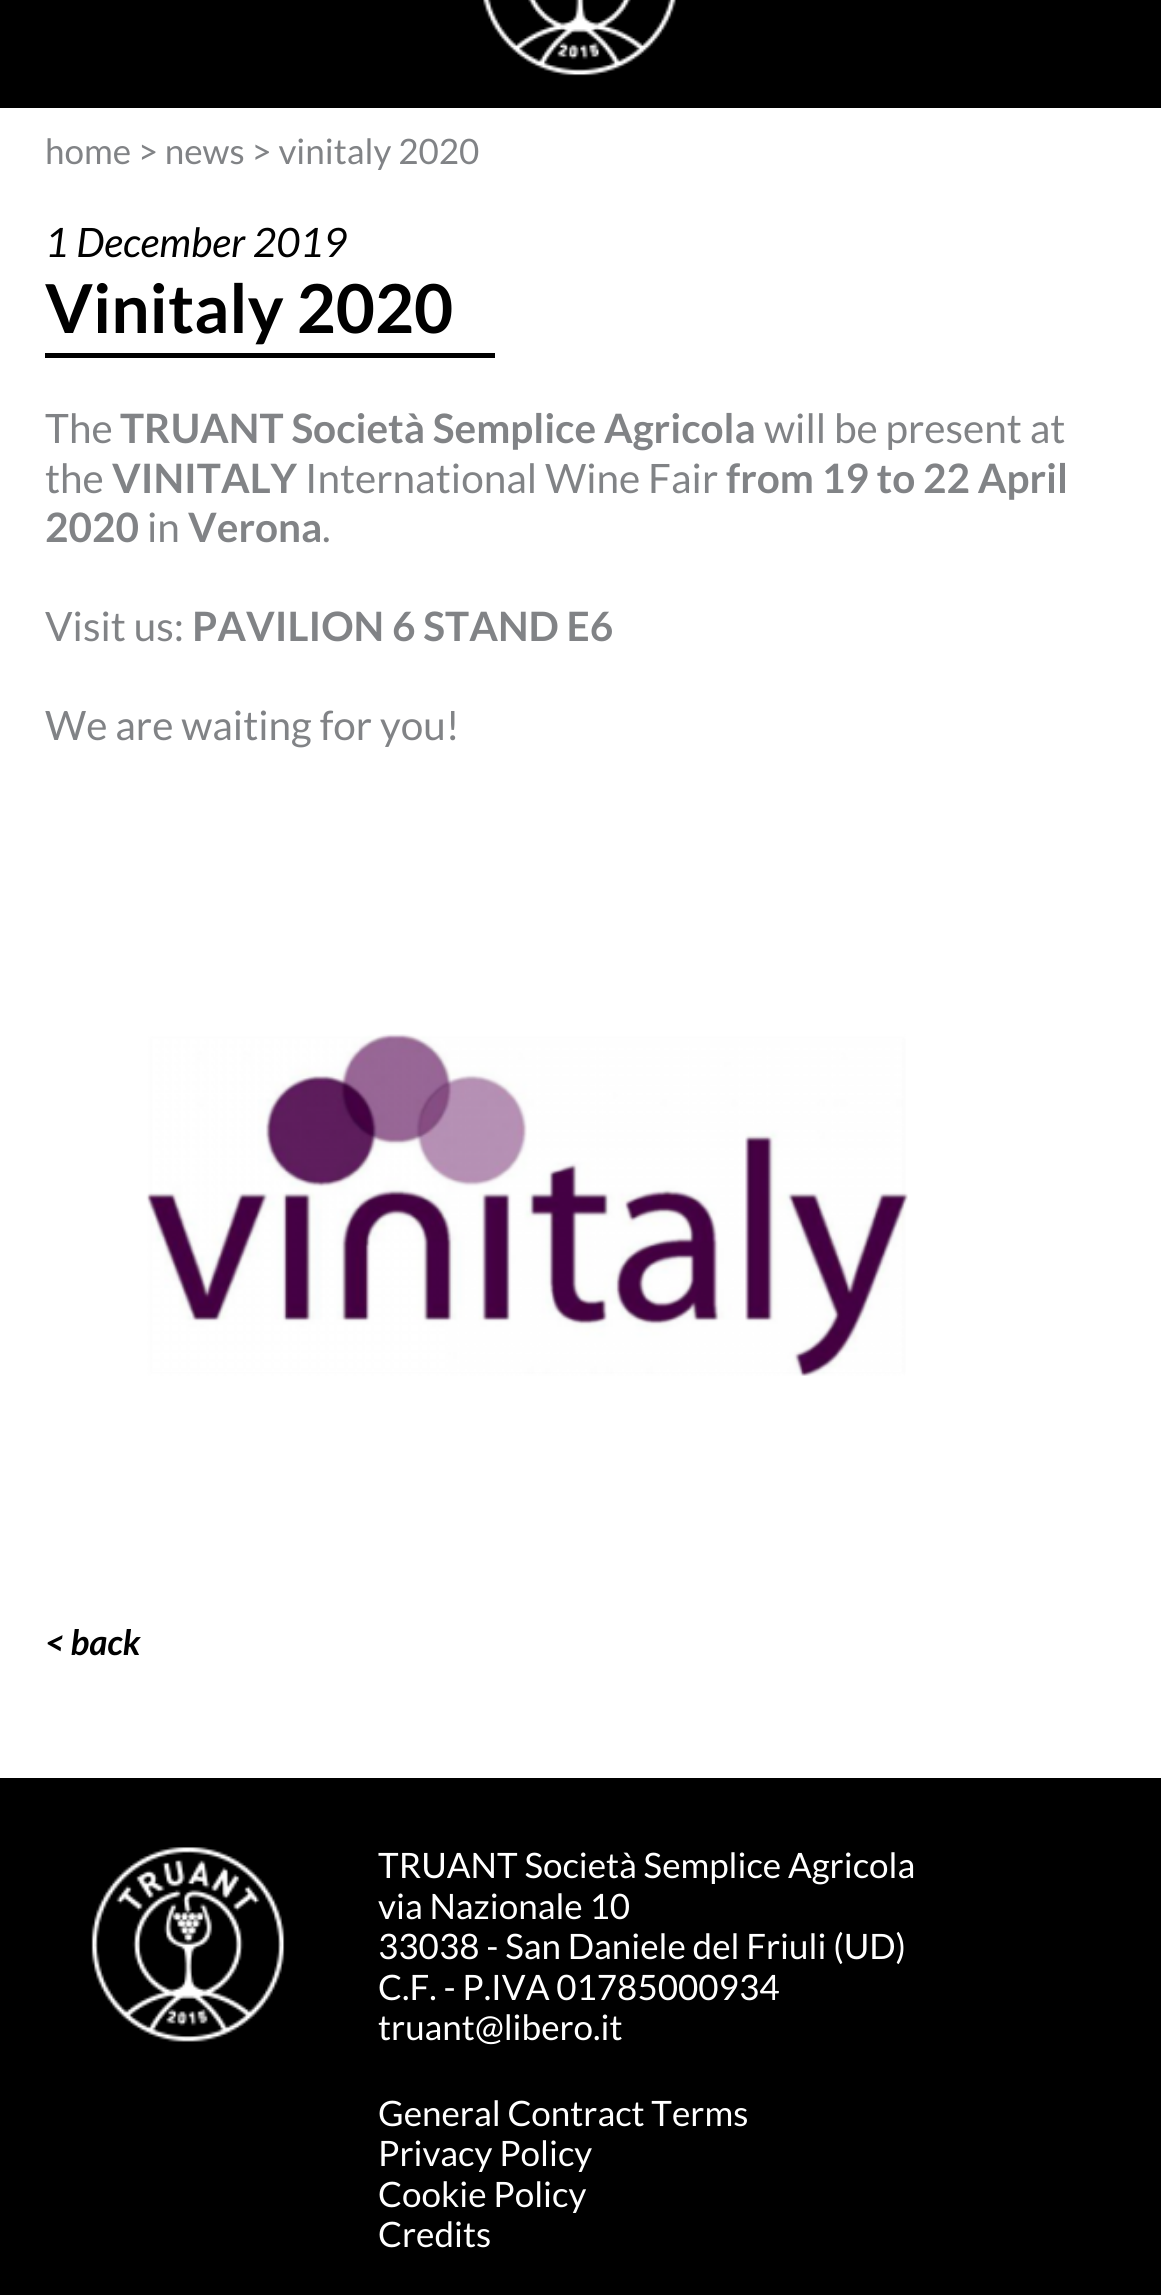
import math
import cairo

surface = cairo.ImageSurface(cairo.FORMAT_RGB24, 1161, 2295)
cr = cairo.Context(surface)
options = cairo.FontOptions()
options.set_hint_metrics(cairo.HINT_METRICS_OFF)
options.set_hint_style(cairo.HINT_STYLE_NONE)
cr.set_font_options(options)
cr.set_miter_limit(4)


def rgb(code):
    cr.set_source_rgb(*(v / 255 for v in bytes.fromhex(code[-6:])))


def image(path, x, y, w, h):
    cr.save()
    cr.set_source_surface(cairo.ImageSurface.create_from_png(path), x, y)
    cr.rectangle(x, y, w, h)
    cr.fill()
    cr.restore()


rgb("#ffffff")
cr.paint()
rgb("#000000")
cr.rectangle(0, 0, 1161, 108)
cr.fill()
image("img/1.png", 483, 0, 193, 76)
cr.rectangle(45, 353, 450, 5)
cr.fill()
image("img/2.png", 146, 1034, 762, 342)
cr.rectangle(0, 1778, 1161, 517)
cr.fill()
image("img/3.png", 91, 1847, 194, 195)
cr.select_font_face("Lato")
cr.set_font_size(35)
rgb("#818386")
cr.move_to(45, 164)
cr.show_text("home > news > vinitaly 2020")
cr.select_font_face("Lato", cairo.FONT_SLANT_ITALIC)
cr.set_font_size(40.5)
rgb("#000000")
cr.move_to(45, 257)
cr.show_text("1 December 2019")
cr.select_font_face("Lato", cairo.FONT_SLANT_NORMAL, cairo.FONT_WEIGHT_BOLD)
cr.set_font_size(67.5)
cr.move_to(45, 333)
cr.show_text("Vinitaly 2020")
cr.select_font_face("Lato")
cr.set_font_size(40.5)
rgb("#818386")
cr.move_to(45, 443)
cr.show_text("The")
cr.select_font_face("Lato", cairo.FONT_SLANT_NORMAL, cairo.FONT_WEIGHT_BOLD)
cr.move_to(120, 443)
cr.show_text("TRUANT Società Semplice Agricola")
cr.select_font_face("Lato")
cr.move_to(764, 443)
cr.show_text("will be present at")
cr.move_to(45, 493)
cr.show_text("the")
cr.select_font_face("Lato", cairo.FONT_SLANT_NORMAL, cairo.FONT_WEIGHT_BOLD)
cr.move_to(112, 493)
cr.show_text("VINITALY")
cr.select_font_face("Lato")
cr.move_to(305, 493)
cr.show_text("International Wine Fair")
cr.select_font_face("Lato", cairo.FONT_SLANT_NORMAL, cairo.FONT_WEIGHT_BOLD)
cr.move_to(726, 493)
cr.show_text("from 19 to 22 April")
cr.move_to(45, 542)
cr.show_text("2020")
cr.select_font_face("Lato")
cr.move_to(147, 542)
cr.show_text("in")
cr.select_font_face("Lato", cairo.FONT_SLANT_NORMAL, cairo.FONT_WEIGHT_BOLD)
cr.move_to(188, 542)
cr.show_text("Verona")
cr.select_font_face("Lato")
cr.move_to(322, 542)
cr.show_text(".")
cr.move_to(45, 641)
cr.show_text("Visit us:")
cr.select_font_face("Lato", cairo.FONT_SLANT_NORMAL, cairo.FONT_WEIGHT_BOLD)
cr.move_to(192, 641)
cr.show_text("PAVILION 6 STAND E6")
cr.select_font_face("Lato")
cr.move_to(45, 740)
cr.show_text("We are waiting for you!")
cr.select_font_face("Lato", cairo.FONT_SLANT_ITALIC, cairo.FONT_WEIGHT_BOLD)
cr.set_font_size(35)
rgb("#000000")
cr.move_to(45, 1655)
cr.show_text("< back")
cr.select_font_face("Lato")
rgb("#ffffff")
for x, y, s in [
    (378, 1878, "TRUANT Società Semplice Agricola"),
    (378, 1919, "via Nazionale 10"),
    (378, 1959, "33038 - San Daniele del Friuli (UD)"),
    (378, 2000, "C.F. - P.IVA 01785000934"),
    (378, 2040, "truant@libero.it"),
    (378, 2126, "General Contract Terms"),
    (378, 2166, "Privacy Policy"),
    (378, 2207, "Cookie Policy"),
    (378, 2247, "Credits"),
]:
    cr.move_to(x, y)
    cr.show_text(s)
surface.write_to_png("page.png")
